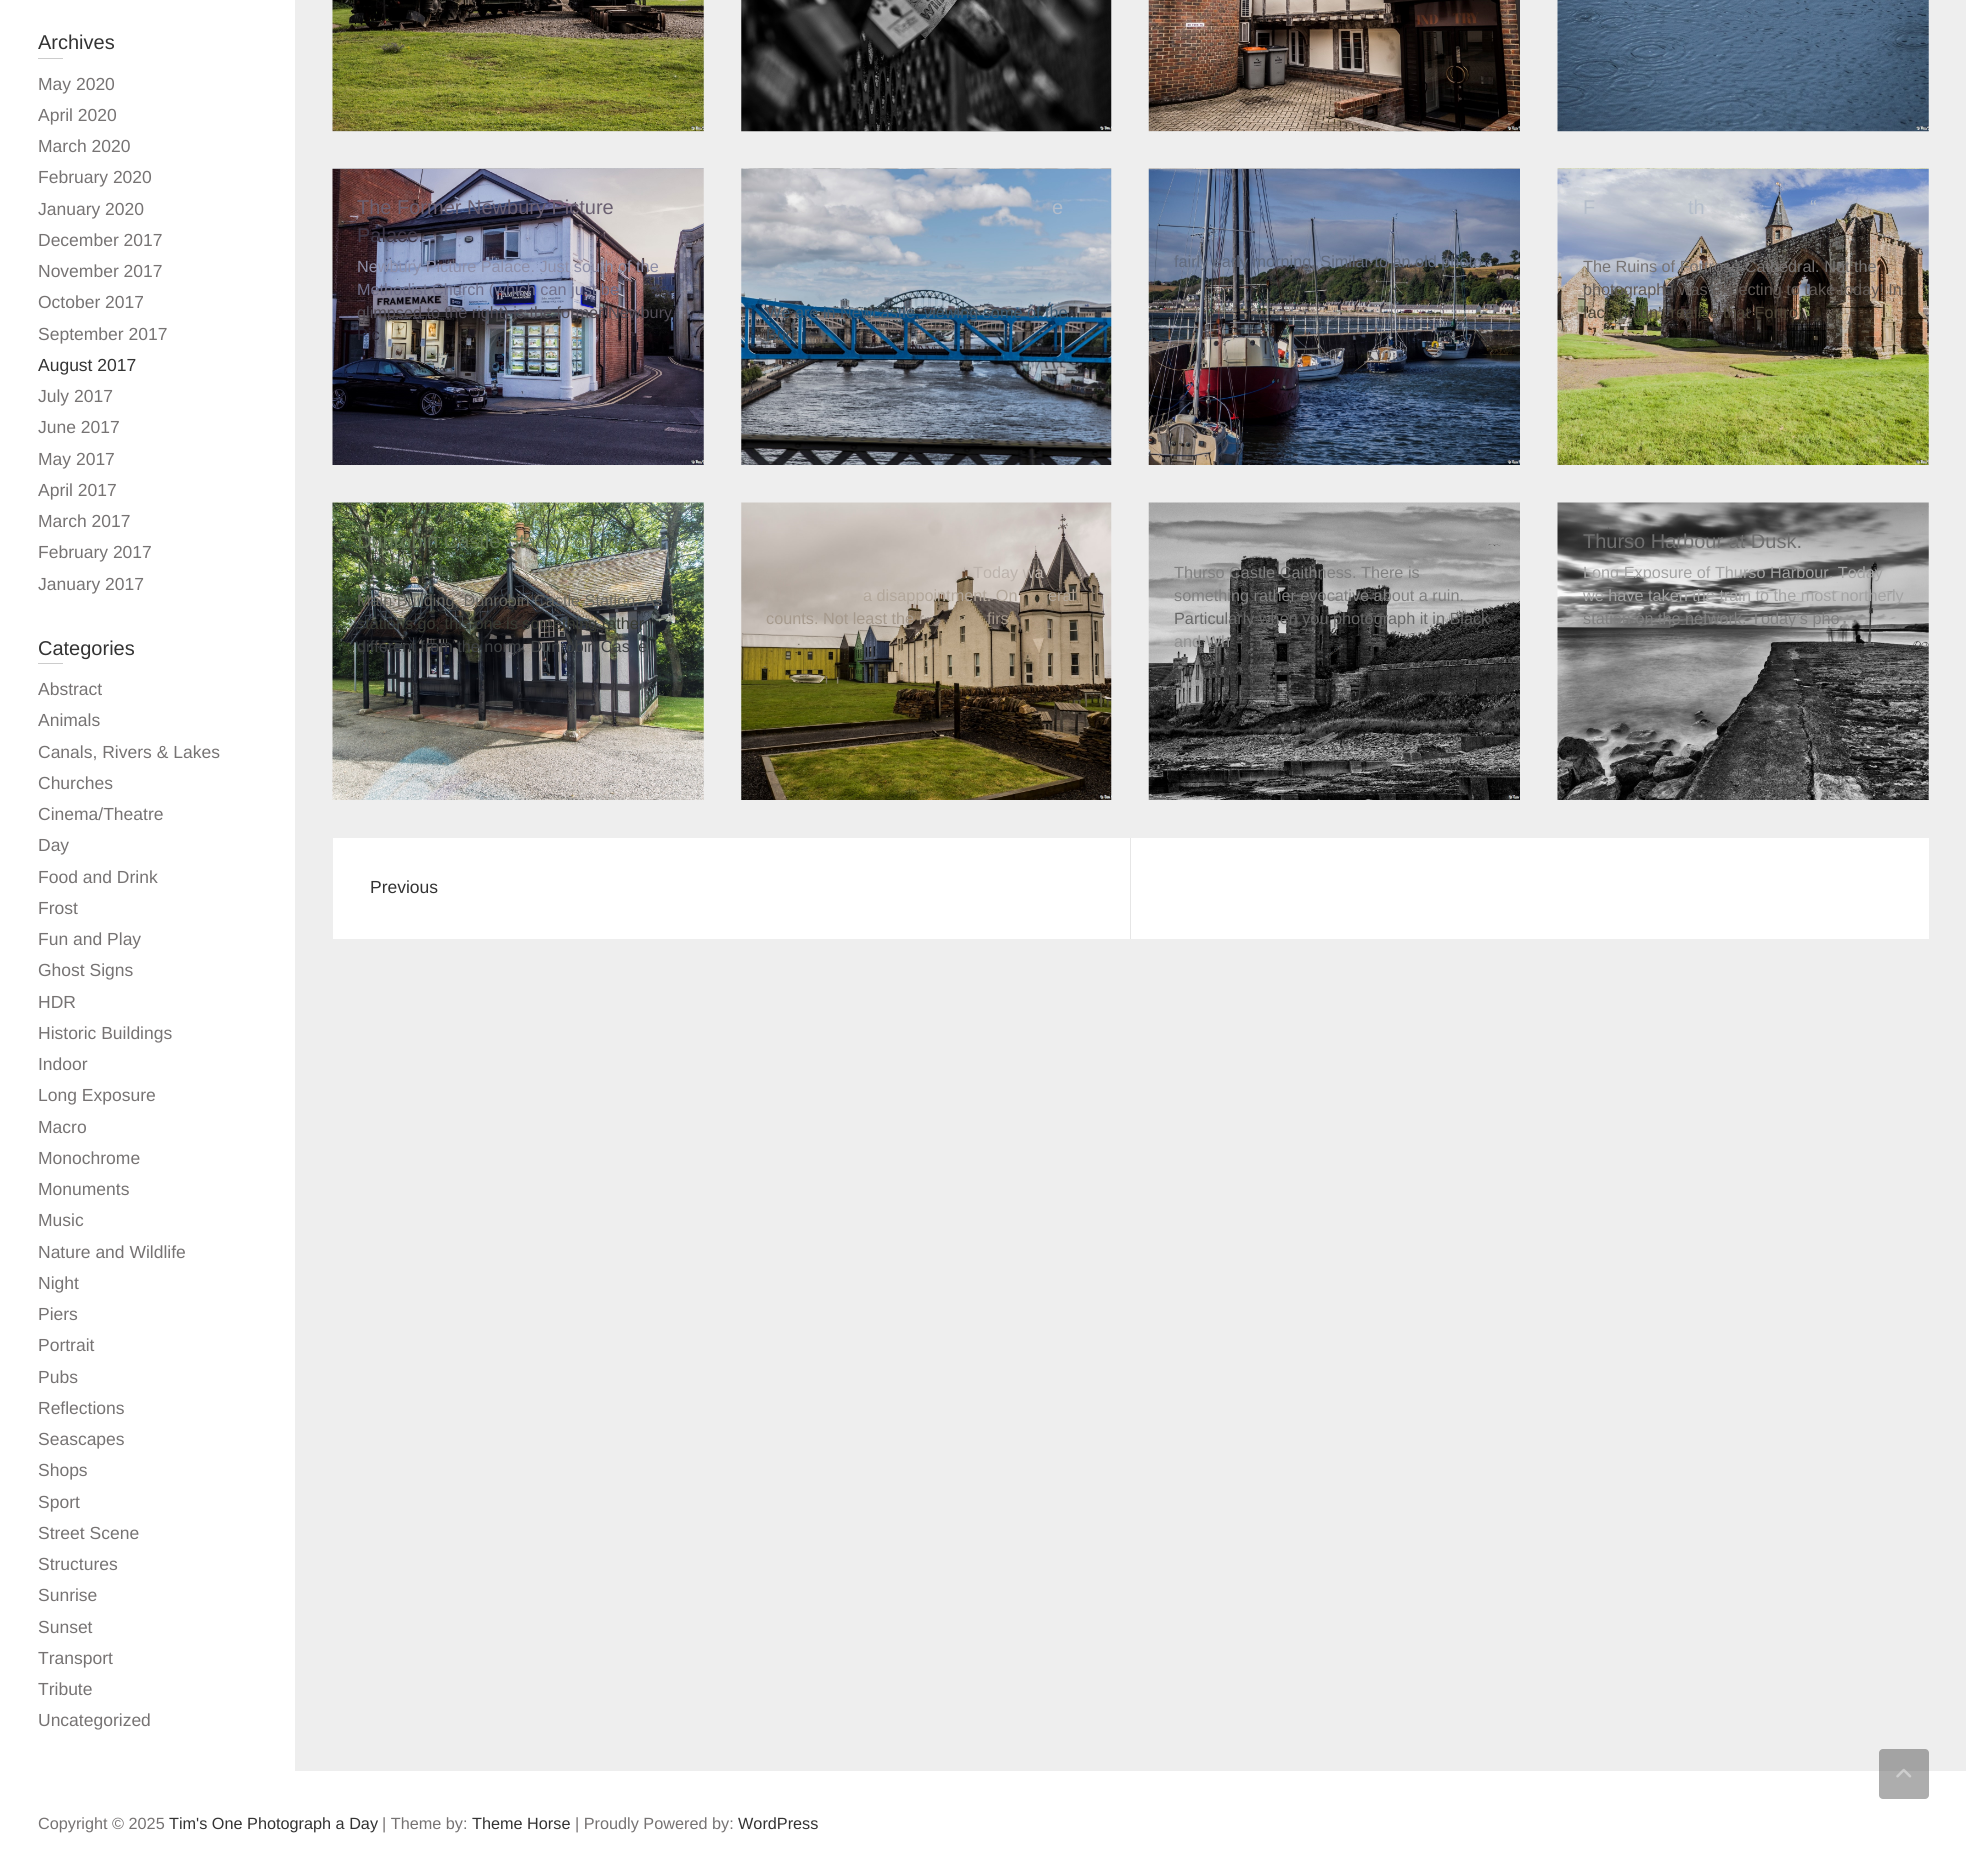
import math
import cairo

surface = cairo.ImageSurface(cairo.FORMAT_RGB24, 1966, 1873)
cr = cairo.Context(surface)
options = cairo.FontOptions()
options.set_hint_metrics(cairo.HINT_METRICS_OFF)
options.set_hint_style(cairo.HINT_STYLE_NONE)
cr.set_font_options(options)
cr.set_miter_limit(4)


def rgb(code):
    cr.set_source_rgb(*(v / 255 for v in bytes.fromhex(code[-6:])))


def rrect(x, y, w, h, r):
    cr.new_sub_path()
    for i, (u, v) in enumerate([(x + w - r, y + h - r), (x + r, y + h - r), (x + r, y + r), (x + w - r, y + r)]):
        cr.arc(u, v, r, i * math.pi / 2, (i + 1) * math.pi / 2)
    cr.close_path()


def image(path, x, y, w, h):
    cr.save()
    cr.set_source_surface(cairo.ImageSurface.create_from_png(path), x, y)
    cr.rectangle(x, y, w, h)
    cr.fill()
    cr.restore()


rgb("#eeeeee")
cr.paint()
for x, y, w, h, color in [
    (0, 0, 295, 1771, "#ffffff"),
    (38, 58, 25, 1, "#cccccc"),
    (38, 663, 25, 1, "#cccccc"),
]:
    rgb(color)
    cr.rectangle(x, y, w, h)
    cr.fill()
image("img/1.png", 332, 0, 372, 132)
image("img/2.png", 741, 0, 371, 132)
image("img/3.png", 1148, 0, 372, 132)
image("img/4.png", 1557, 0, 372, 132)
image("img/5.png", 332, 168, 372, 297)
image("img/6.png", 741, 168, 371, 297)
image("img/7.png", 1148, 168, 372, 297)
image("img/8.png", 1557, 168, 372, 297)
image("img/9.png", 332, 502, 372, 298)
image("img/10.png", 741, 502, 371, 298)
image("img/11.png", 1148, 502, 372, 298)
image("img/12.png", 1557, 502, 372, 298)
for x, y, w, h, color in [
    (333, 838, 1596, 101, "#ffffff"),
    (1130, 838, 1, 101, "#e6e6e6"),
    (0, 1771, 1966, 102, "#ffffff"),
]:
    rgb(color)
    cr.rectangle(x, y, w, h)
    cr.fill()
cr.set_source_rgba(0.2, 0.2, 0.2, 0.4)
rrect(1879, 1749, 50, 50, 4)
cr.fill()
image("img/13.png", 1896, 1768, 16, 10)
cr.select_font_face("Liberation Sans")
cr.set_font_size(20)
rgb("#333333")
cr.move_to(38, 49)
cr.show_text("Archives")
cr.set_font_size(17.5)
rgb("#767373")
for x, y, s in [
    (38, 90, "May 2020"),
    (38, 121, "April 2020"),
    (38, 152, "March 2020"),
    (38, 183, "February 2020"),
    (38, 215, "January 2020"),
    (38, 246, "December 2017"),
    (38, 277, "November 2017"),
    (38, 308, "October 2017"),
    (38, 340, "September 2017"),
]:
    cr.move_to(x, y)
    cr.show_text(s)
rgb("#333333")
cr.move_to(38, 371)
cr.show_text("August 2017")
rgb("#767373")
for x, y, s in [
    (38, 402, "July 2017"),
    (38, 433, "June 2017"),
    (38, 465, "May 2017"),
    (38, 496, "April 2017"),
    (38, 527, "March 2017"),
    (38, 558, "February 2017"),
    (38, 590, "January 2017"),
]:
    cr.move_to(x, y)
    cr.show_text(s)
cr.set_font_size(20)
rgb("#333333")
cr.move_to(38, 655)
cr.show_text("Categories")
cr.set_font_size(17.5)
rgb("#767373")
for x, y, s in [
    (38, 695, "Abstract"),
    (38, 726, "Animals"),
    (38, 758, "Canals, Rivers & Lakes"),
    (38, 789, "Churches"),
    (38, 820, "Cinema/Theatre"),
    (38, 851, "Day"),
    (38, 883, "Food and Drink"),
    (38, 914, "Frost"),
    (38, 945, "Fun and Play"),
    (38, 976, "Ghost Signs"),
    (38, 1008, "HDR"),
    (38, 1039, "Historic Buildings"),
    (38, 1070, "Indoor"),
    (38, 1101, "Long Exposure"),
    (38, 1133, "Macro"),
    (38, 1164, "Monochrome"),
    (38, 1195, "Monuments"),
    (38, 1226, "Music"),
    (38, 1258, "Nature and Wildlife"),
    (38, 1289, "Night"),
    (38, 1320, "Piers"),
    (38, 1351, "Portrait"),
    (38, 1383, "Pubs"),
    (38, 1414, "Reflections"),
    (38, 1445, "Seascapes"),
    (38, 1476, "Shops"),
    (38, 1508, "Sport"),
    (38, 1539, "Street Scene"),
    (38, 1570, "Structures"),
    (38, 1601, "Sunrise"),
    (38, 1633, "Sunset"),
    (38, 1664, "Transport"),
    (38, 1695, "Tribute"),
    (38, 1726, "Uncategorized"),
]:
    cr.move_to(x, y)
    cr.show_text(s)
cr.set_font_size(20)
rgb("#6b6071")
cr.move_to(357, 214)
cr.show_text("The Former Newbury Picture")
rgb("#3e3848")
cr.move_to(357, 242)
cr.show_text("Palace.")
cr.set_font_size(16.25)
rgb("#8e8fa8")
cr.move_to(357, 272)
cr.show_text("Newbury Picture Palace. Just south of the")
rgb("#70708b")
cr.move_to(357, 295)
cr.show_text("Methodist Church (which can just be")
rgb("#524d56")
cr.move_to(357, 318)
cr.show_text("glimpsed to the right) is the former Newbury")
rgb("#2a2634")
cr.move_to(357, 340)
cr.show_text("Pic")
cr.set_font_size(20)
rgb("#b4bdca")
cr.move_to(1052, 214)
cr.show_text("e")
cr.set_font_size(16.25)
rgb("#3c5b73")
cr.move_to(766, 318)
cr.show_text("We are in Newcastle, viewing some of the")
rgb("#374c5c")
cr.move_to(766, 340)
cr.show_text("Brid")
rgb("#616b7e")
cr.move_to(1174, 267)
cr.show_text("fairly early morning. Similar to an old photo")
rgb("#383b33")
cr.move_to(1392, 290)
cr.show_text(".")
cr.set_font_size(20)
rgb("#b4bdca")
for x, y, s in [
    (1583, 214, "F"),
    (1688, 214, "th"),
    (1776, 214, "t"),
    (1810, 214, "“"),
]:
    cr.move_to(x, y)
    cr.show_text(s)
cr.set_font_size(16.25)
rgb("#767373")
cr.move_to(1583, 272)
cr.show_text("The Ruins of Fortrose Cathedral. Not the")
rgb("#615a56")
cr.move_to(1583, 295)
cr.show_text("photograph I was expecting to take today! In")
rgb("#4e4739")
cr.move_to(1583, 318)
cr.show_text("fact, I didn’t realise that Fortro")
cr.set_font_size(20)
rgb("#647656")
cr.move_to(357, 548)
cr.show_text("Dunrobin Castle Station on the Far")
rgb("#4c5c41")
cr.move_to(357, 576)
cr.show_text("North Line.")
cr.set_font_size(16.25)
rgb("#686760")
cr.move_to(357, 606)
cr.show_text("Main Building, Dunrobin Castle Station. As")
rgb("#383b33")
cr.move_to(357, 629)
cr.show_text("stations go, this one is something rather")
rgb("#3e4143")
cr.move_to(357, 652)
cr.show_text("different from the norm. Dunrobin Cas")
cr.move_to(638, 652)
cr.show_text("e")
rgb("#bcb3ac")
cr.move_to(964, 578)
cr.show_text(". Today wa")
rgb("#b2a79b")
cr.move_to(863, 601)
cr.show_text("a disappointment. On")
cr.move_to(1048, 601)
cr.show_text("eral")
rgb("#a5998c")
cr.move_to(766, 624)
cr.show_text("counts. Not least the r")
cr.move_to(987, 624)
cr.show_text("firs")
rgb("#808080")
cr.move_to(1174, 578)
cr.show_text("Thurso Castle Caithness. There is")
cr.move_to(1174, 601)
cr.show_text("something rather evocative about a ruin.")
rgb("#686868")
cr.move_to(1174, 624)
cr.show_text("Particularly when you photograph it in Black")
rgb("#929292")
cr.move_to(1174, 647)
cr.show_text("and Wh")
cr.set_font_size(20)
rgb("#6f6f6f")
cr.move_to(1583, 548)
cr.show_text("Thurso Harbour at Dusk.")
cr.set_font_size(16.25)
rgb("#a3a3a3")
cr.move_to(1583, 578)
cr.show_text("Long Exposure of Thurso Harbour. Today")
cr.move_to(1583, 601)
cr.show_text("we have taken the train to the most northerly")
rgb("#808080")
cr.move_to(1583, 624)
cr.show_text("station on the network. Today’s pho")
cr.set_font_size(17.5)
rgb("#333333")
cr.move_to(370, 893)
cr.show_text("Previous")
cr.set_font_size(16.25)
rgb("#767373")
cr.move_to(38, 1829)
cr.show_text("Copyright © 2025")
rgb("#333333")
cr.move_to(169, 1829)
cr.show_text("Tim's One Photograph a Day")
rgb("#767373")
cr.move_to(382, 1829)
cr.show_text("| Theme by:")
rgb("#333333")
cr.move_to(472, 1829)
cr.show_text("Theme Horse")
rgb("#767373")
cr.move_to(575, 1829)
cr.show_text("| Proudly Powered by:")
rgb("#333333")
cr.move_to(738, 1829)
cr.show_text("WordPress")
surface.write_to_png("page.png")
